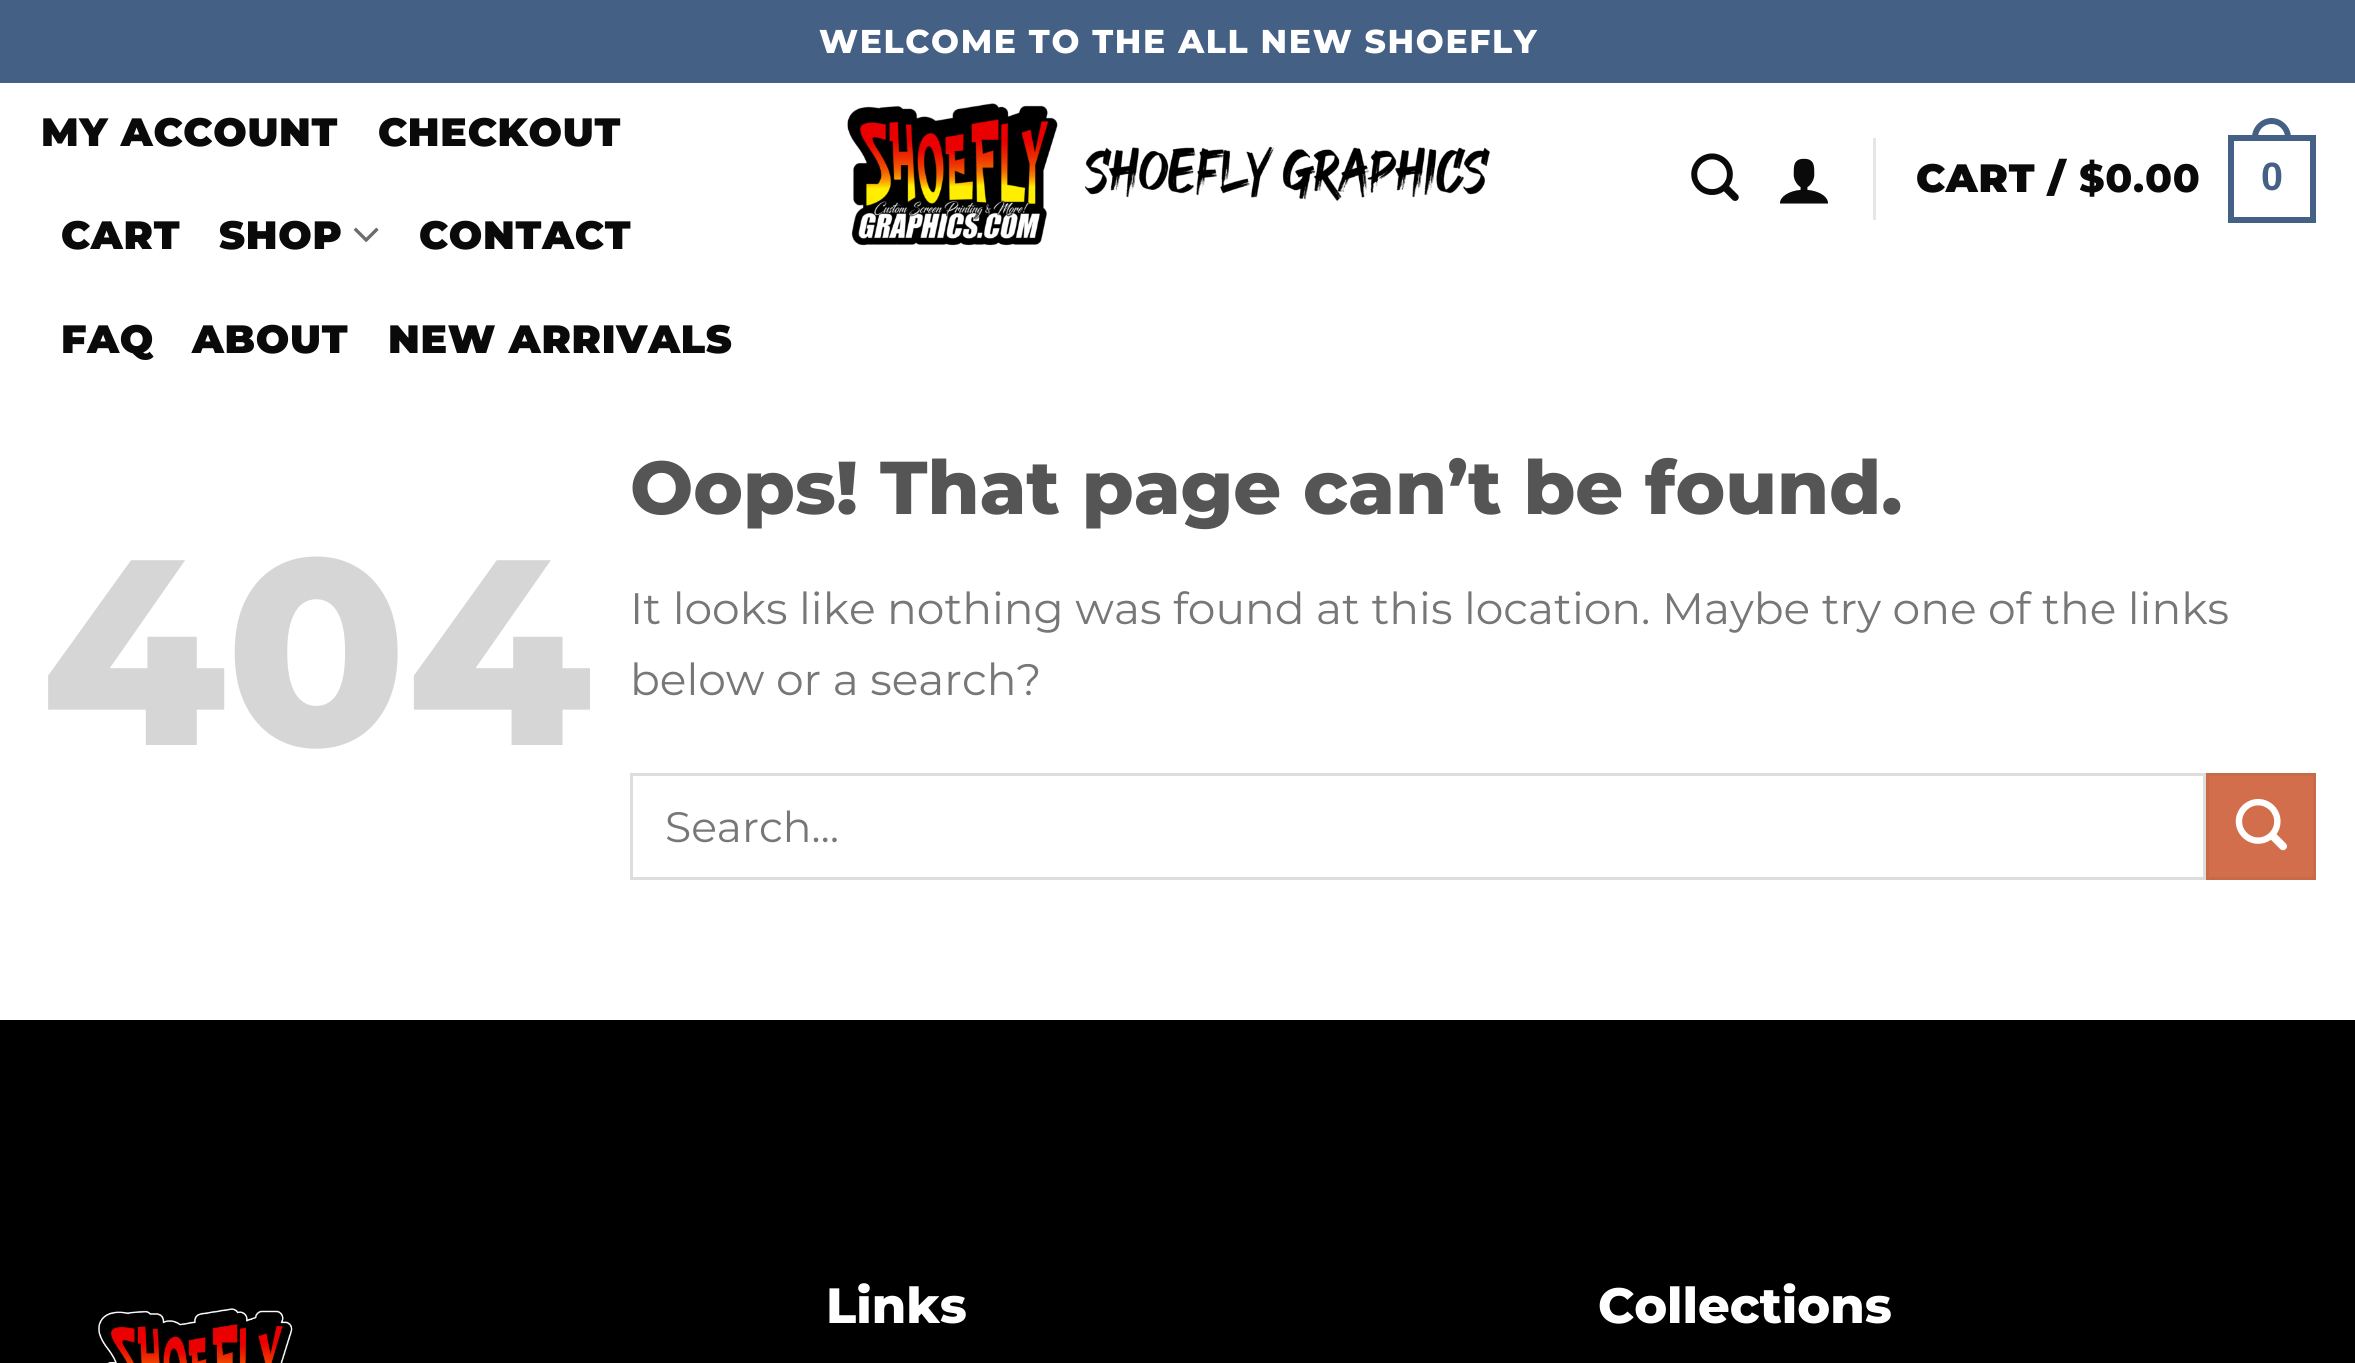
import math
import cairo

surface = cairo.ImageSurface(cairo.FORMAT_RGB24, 2355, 1363)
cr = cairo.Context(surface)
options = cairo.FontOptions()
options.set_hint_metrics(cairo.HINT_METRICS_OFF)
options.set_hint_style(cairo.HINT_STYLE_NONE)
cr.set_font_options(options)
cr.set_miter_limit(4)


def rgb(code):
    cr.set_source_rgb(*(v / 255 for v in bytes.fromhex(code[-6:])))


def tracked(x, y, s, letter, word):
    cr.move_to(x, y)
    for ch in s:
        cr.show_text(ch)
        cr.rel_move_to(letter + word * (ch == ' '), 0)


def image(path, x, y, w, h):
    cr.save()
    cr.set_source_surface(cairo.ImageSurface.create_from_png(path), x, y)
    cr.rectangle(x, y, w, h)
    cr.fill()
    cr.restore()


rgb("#ffffff")
cr.paint()
rgb("#446084")
cr.rectangle(0, 0, 2355, 83)
cr.fill()
image("img/1.png", 354, 227, 25, 15)
image("img/2.png", 847, 103, 643, 143)
image("img/3.png", 1691, 153, 48, 48)
image("img/4.png", 1779, 158, 50, 46)
rgb("#e6e6e6")
cr.rectangle(1873, 138, 3, 82)
cr.fill()
cr.rectangle(2231, 138, 82, 82)
rgb("#446084")
cr.set_line_width(6)
cr.stroke()
cr.set_fill_rule(cairo.FILL_RULE_EVEN_ODD)
cr.new_path()
cr.move_to(2271.5, 118)
cr.curve_to(2282, 118, 2291, 127, 2291, 137.5)
cr.line_to(2291, 140)
cr.line_to(2252, 140)
cr.line_to(2252, 137.5)
cr.curve_to(2252, 127, 2261, 118, 2271.5, 118)
cr.close_path()
cr.move_to(2271.5, 124)
cr.curve_to(2279, 124, 2285, 130, 2285, 137.5)
cr.line_to(2285, 140)
cr.line_to(2258, 140)
cr.line_to(2258, 137.5)
cr.curve_to(2258, 130, 2264, 124, 2271.5, 124)
cr.close_path()
cr.fill()
cr.rectangle(631.5, 774.5, 1573, 104)
rgb("#dddddd")
cr.set_line_width(3)
cr.stroke()
rgb("#d26e4b")
cr.rectangle(2207.5, 774.5, 107, 104)
cr.fill_preserve()
rgb("#c86947")
cr.stroke()
image("img/5.png", 2235, 799, 52, 52)
rgb("#000000")
cr.rectangle(0, 1020, 2355, 343)
cr.fill()
image("img/6.png", 98, 1308, 195, 55)
cr.select_font_face("Montserrat ExtraBold")
cr.set_font_size(33)
rgb("#ffffff")
tracked(819, 53, "WELCOME TO THE ALL NEW SHOEFLY", 1.65, 0)
cr.select_font_face("Montserrat Black")
cr.set_font_size(39.5)
rgb("#0a0a0a")
for x, y, s in [
    (41, 146, "MY ACCOUNT"),
    (378, 146, "CHECKOUT"),
    (61, 249, "CART"),
    (219, 249, "SHOP"),
    (419, 249, "CONTACT"),
    (61, 353, "FAQ"),
    (192, 353, "ABOUT"),
    (388, 353, "NEW ARRIVALS"),
    (1916, 192, "CART /"),
]:
    tracked(x, y, s, 0.75, 0)
cr.select_font_face("Montserrat ExtraBold")
tracked(2079, 192, "$0.00", 0.75, 0)
cr.select_font_face("Liberation Sans", cairo.FONT_SLANT_NORMAL, cairo.FONT_WEIGHT_BOLD)
rgb("#446084")
tracked(2261, 190, "0", 0.75, 0)
cr.select_font_face("Montserrat ExtraBold")
cr.set_font_size(264)
rgb("#d6d6d6")
cr.move_to(41, 745)
cr.show_text("404")
cr.set_font_size(74.75)
rgb("#555555")
cr.move_to(630, 514)
cr.show_text("Oops! That page can’t be found.")
cr.select_font_face("Montserrat")
cr.set_font_size(44)
rgb("#777777")
cr.move_to(630, 624)
cr.show_text("It looks like nothing was found at this location. Maybe try one of the links")
cr.move_to(630, 695)
cr.show_text("below or a search?")
cr.set_font_size(42.5)
cr.move_to(665, 842)
cr.show_text("Search…")
cr.select_font_face("Montserrat ExtraBold")
cr.set_font_size(49.5)
rgb("#ffffff")
cr.move_to(826, 1323)
cr.show_text("Links")
cr.move_to(1598, 1323)
cr.show_text("Collections")
surface.write_to_png("page.png")
